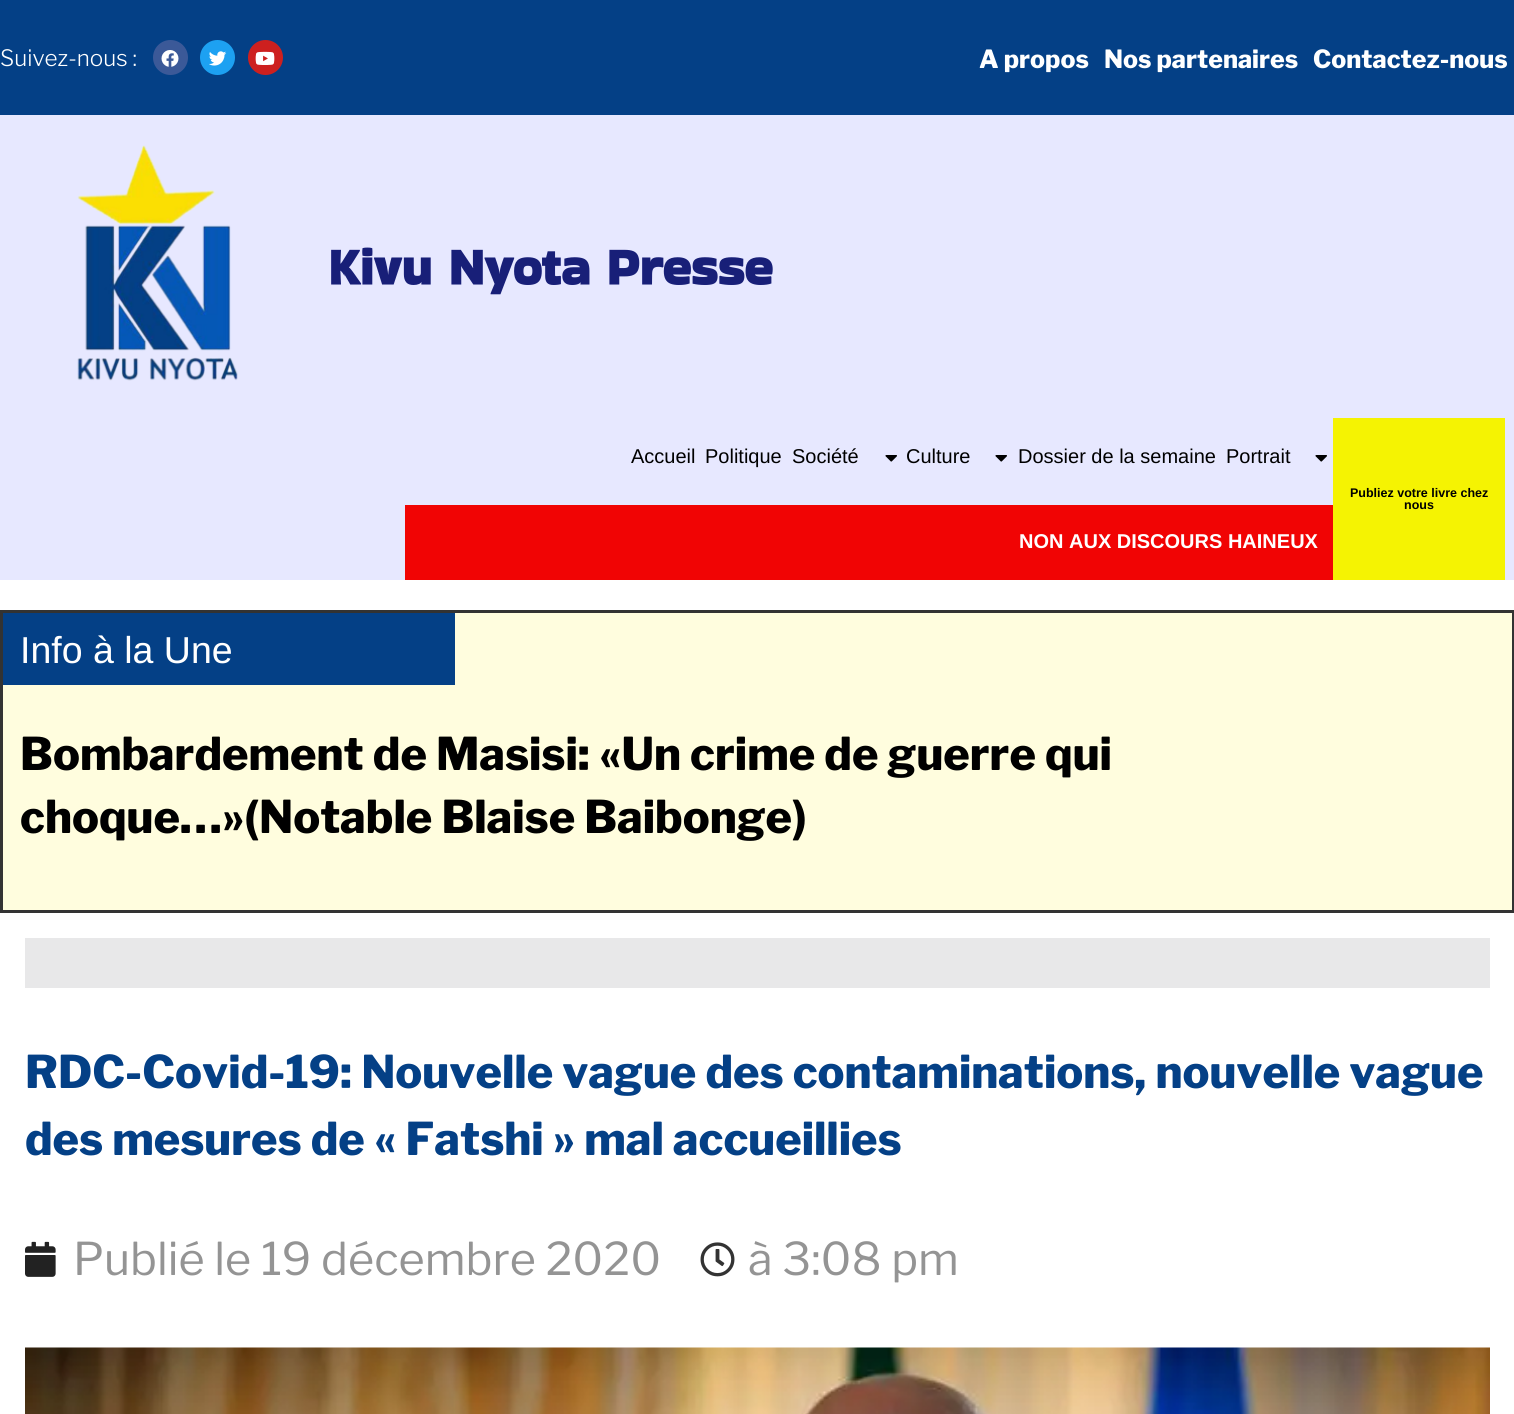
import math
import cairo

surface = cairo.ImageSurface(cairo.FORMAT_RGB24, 1514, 1414)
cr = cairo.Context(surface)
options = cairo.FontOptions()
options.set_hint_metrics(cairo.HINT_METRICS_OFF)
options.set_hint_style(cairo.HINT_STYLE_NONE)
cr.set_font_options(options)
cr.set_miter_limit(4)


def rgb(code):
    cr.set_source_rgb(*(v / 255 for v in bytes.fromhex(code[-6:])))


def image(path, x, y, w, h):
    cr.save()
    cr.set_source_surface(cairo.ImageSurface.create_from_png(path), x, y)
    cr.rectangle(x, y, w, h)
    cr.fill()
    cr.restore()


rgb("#ffffff")
cr.paint()
rgb("#044086")
cr.rectangle(0, 0, 1514, 115)
cr.fill()
rgb("#3b5998")
cr.arc(170.5, 57.5, 17.5, 0, 2 * math.pi)
cr.fill()
image("img/1.png", 161, 50, 18, 17)
rgb("#1da1f2")
cr.arc(217.5, 57.5, 17.5, 0, 2 * math.pi)
cr.fill()
image("img/2.png", 209, 51, 18, 15)
rgb("#cd201f")
cr.arc(265.5, 57.5, 17.5, 0, 2 * math.pi)
cr.fill()
image("img/3.png", 255, 51, 20, 14)
rgb("#e7e8ff")
cr.rectangle(0, 115, 1514, 465)
cr.fill()
image("img/4.png", 77, 145, 161, 236)
image("img/5.png", 885, 455, 12, 7)
image("img/5.png", 995, 455, 12, 7)
image("img/5.png", 1315, 455, 12, 7)
rgb("#f10404")
cr.rectangle(405, 505, 928, 75)
cr.fill()
rgb("#f5f302")
cr.rectangle(1333, 418, 172, 162)
cr.fill()
rgb("#fffdde")
cr.rectangle(1.5, 611.5, 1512, 300)
cr.fill_preserve()
rgb("#333333")
cr.set_line_width(3)
cr.stroke()
rgb("#044086")
cr.rectangle(3, 613, 452, 72)
cr.fill()
rgb("#e8e8e9")
cr.rectangle(25, 938, 1465, 50)
cr.fill()
image("img/6.png", 25, 1241, 31, 36)
image("img/7.png", 700, 1242, 35, 35)
image("img/8.png", 25, 1347, 1465, 67)
cr.select_font_face("Libre Franklin Thin")
cr.set_font_size(22.5)
rgb("#ffffff")
cr.move_to(0, 66)
cr.show_text("Suivez-nous :")
cr.select_font_face("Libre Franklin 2 Thin")
cr.set_font_size(25)
for x, y, s in [
    (979, 68, "A propos"),
    (1104, 68, "Nos partenaires"),
    (1313, 68, "Contactez-nous"),
]:
    cr.move_to(x, y)
    cr.show_text(s)
cr.select_font_face("Bakbak One", cairo.FONT_SLANT_NORMAL, cairo.FONT_WEIGHT_BOLD)
cr.set_font_size(52.5)
rgb("#181f78")
cr.move_to(328, 285)
cr.show_text("Kivu Nyota Presse")
cr.select_font_face("Liberation Sans")
cr.set_font_size(20)
rgb("#000000")
for x, y, s in [
    (631, 463, "Accueil"),
    (705, 463, "Politique"),
    (792, 463, "Société"),
    (906, 463, "Culture"),
    (1018, 463, "Dossier de la semaine"),
    (1226, 463, "Portrait"),
]:
    cr.move_to(x, y)
    cr.show_text(s)
cr.select_font_face("Liberation Sans", cairo.FONT_SLANT_NORMAL, cairo.FONT_WEIGHT_BOLD)
rgb("#ffffff")
cr.move_to(1019, 548)
cr.show_text("NON AUX DISCOURS HAINEUX")
cr.set_font_size(12.5)
rgb("#000000")
cr.move_to(1350, 497)
cr.show_text("Publiez votre livre chez")
cr.move_to(1404, 509)
cr.show_text("nous")
cr.select_font_face("Liberation Sans")
cr.set_font_size(37.5)
rgb("#ffffff")
cr.move_to(20, 663)
cr.show_text("Info à la Une")
cr.select_font_face("Libre Franklin 2 Thin")
cr.set_font_size(45)
rgb("#000000")
cr.move_to(20, 770)
cr.show_text("Bombardement de Masisi: «Un crime de guerre qui")
cr.move_to(20, 833)
cr.show_text("choque…»(Notable Blaise Baibonge)")
rgb("#044086")
cr.move_to(25, 1088)
cr.show_text("RDC-Covid-19: Nouvelle vague des contaminations, nouvelle vague")
cr.move_to(25, 1155)
cr.show_text("des mesures de « Fatshi » mal accueillies")
cr.select_font_face("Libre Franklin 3 Thin")
rgb("#949494")
cr.move_to(73, 1275)
cr.show_text("Publié le 19 décembre 2020")
cr.move_to(748, 1275)
cr.show_text("à 3:08 pm")
surface.write_to_png("page.png")
